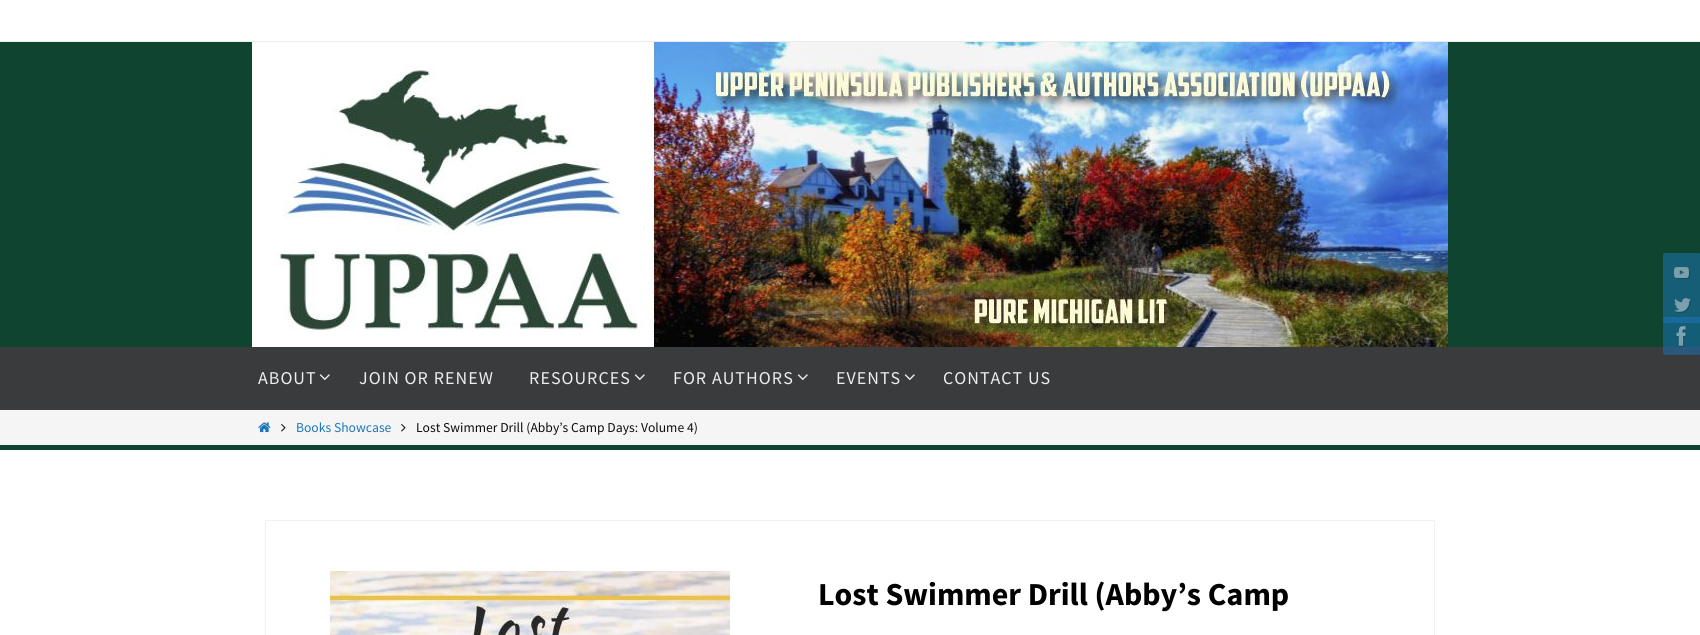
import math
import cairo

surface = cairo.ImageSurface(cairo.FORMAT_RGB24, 1700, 635)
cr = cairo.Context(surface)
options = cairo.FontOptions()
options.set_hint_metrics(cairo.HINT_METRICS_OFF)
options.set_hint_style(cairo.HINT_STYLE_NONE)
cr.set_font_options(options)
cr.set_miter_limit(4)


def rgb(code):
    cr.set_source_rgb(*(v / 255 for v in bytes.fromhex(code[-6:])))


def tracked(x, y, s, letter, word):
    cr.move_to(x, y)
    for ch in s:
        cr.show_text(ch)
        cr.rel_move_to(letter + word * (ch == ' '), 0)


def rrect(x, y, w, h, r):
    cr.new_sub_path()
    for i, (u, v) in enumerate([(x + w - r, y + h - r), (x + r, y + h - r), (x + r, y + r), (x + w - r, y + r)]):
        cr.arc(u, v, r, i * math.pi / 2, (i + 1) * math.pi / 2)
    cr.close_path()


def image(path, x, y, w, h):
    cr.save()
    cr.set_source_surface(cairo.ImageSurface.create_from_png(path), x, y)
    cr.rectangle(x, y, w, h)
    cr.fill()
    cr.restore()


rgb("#0f4430")
cr.paint()
rgb("#ffffff")
cr.rectangle(0, 0, 1700, 41)
cr.fill()
rgb("#ebebeb")
cr.rectangle(0, 41, 1700, 1)
cr.fill()
rgb("#155e76")
rrect(1663, 253, 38, 38, 2)
cr.fill()
image("img/1.png", 1674, 267, 16, 12)
rrect(1663, 285, 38, 38, 2)
cr.fill()
image("img/2.png", 1674, 298, 18, 15)
rgb("#3a3b3d")
cr.rectangle(0, 347, 1700, 63)
cr.fill()
cr.set_source_rgba(0.102, 0.467, 0.737, 0.5)
rrect(1663, 317, 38, 38, 2)
cr.fill()
image("img/3.png", 1676, 326, 10, 22)
image("img/4.png", 252, 42, 1196, 305)
image("img/5.png", 319, 374, 11, 7)
image("img/5.png", 634, 374, 11, 7)
image("img/5.png", 797, 374, 11, 7)
image("img/5.png", 904, 374, 11, 7)
rgb("#f5f5f5")
cr.rectangle(0, 410, 1700, 35)
cr.fill()
image("img/6.png", 258, 422, 13, 11)
image("img/7.png", 281, 424, 5, 8)
image("img/7.png", 401, 424, 5, 8)
rgb("#ffffff")
cr.rectangle(0, 450, 1700, 185)
cr.fill()
cr.rectangle(265.5, 520.5, 1169, 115)
rgb("#f1f1f1")
cr.set_line_width(1)
cr.stroke()
image("img/8.png", 330, 571, 400, 64)
cr.select_font_face("Source Sans Pro")
cr.set_font_size(18)
rgb("#eeeeee")
for x, y, s in [
    (258, 384, "ABOUT"),
    (359, 384, "JOIN OR RENEW"),
    (529, 384, "RESOURCES"),
    (673, 384, "FOR AUTHORS"),
    (836, 384, "EVENTS"),
    (943, 384, "CONTACT US"),
]:
    tracked(x, y, s, 1, 0)
cr.set_font_size(13.6)
rgb("#1a77bc")
cr.move_to(296, 432)
cr.show_text("Books Showcase")
rgb("#0d0d0d")
cr.move_to(416, 432)
cr.show_text("Lost Swimmer Drill (Abby’s Camp Days: Volume 4)")
cr.select_font_face("Source Sans Pro", cairo.FONT_SLANT_NORMAL, cairo.FONT_WEIGHT_BOLD)
cr.set_font_size(32)
rgb("#000000")
cr.move_to(818, 605)
cr.show_text("Lost Swimmer Drill (Abby’s Camp")
surface.write_to_png("page.png")
